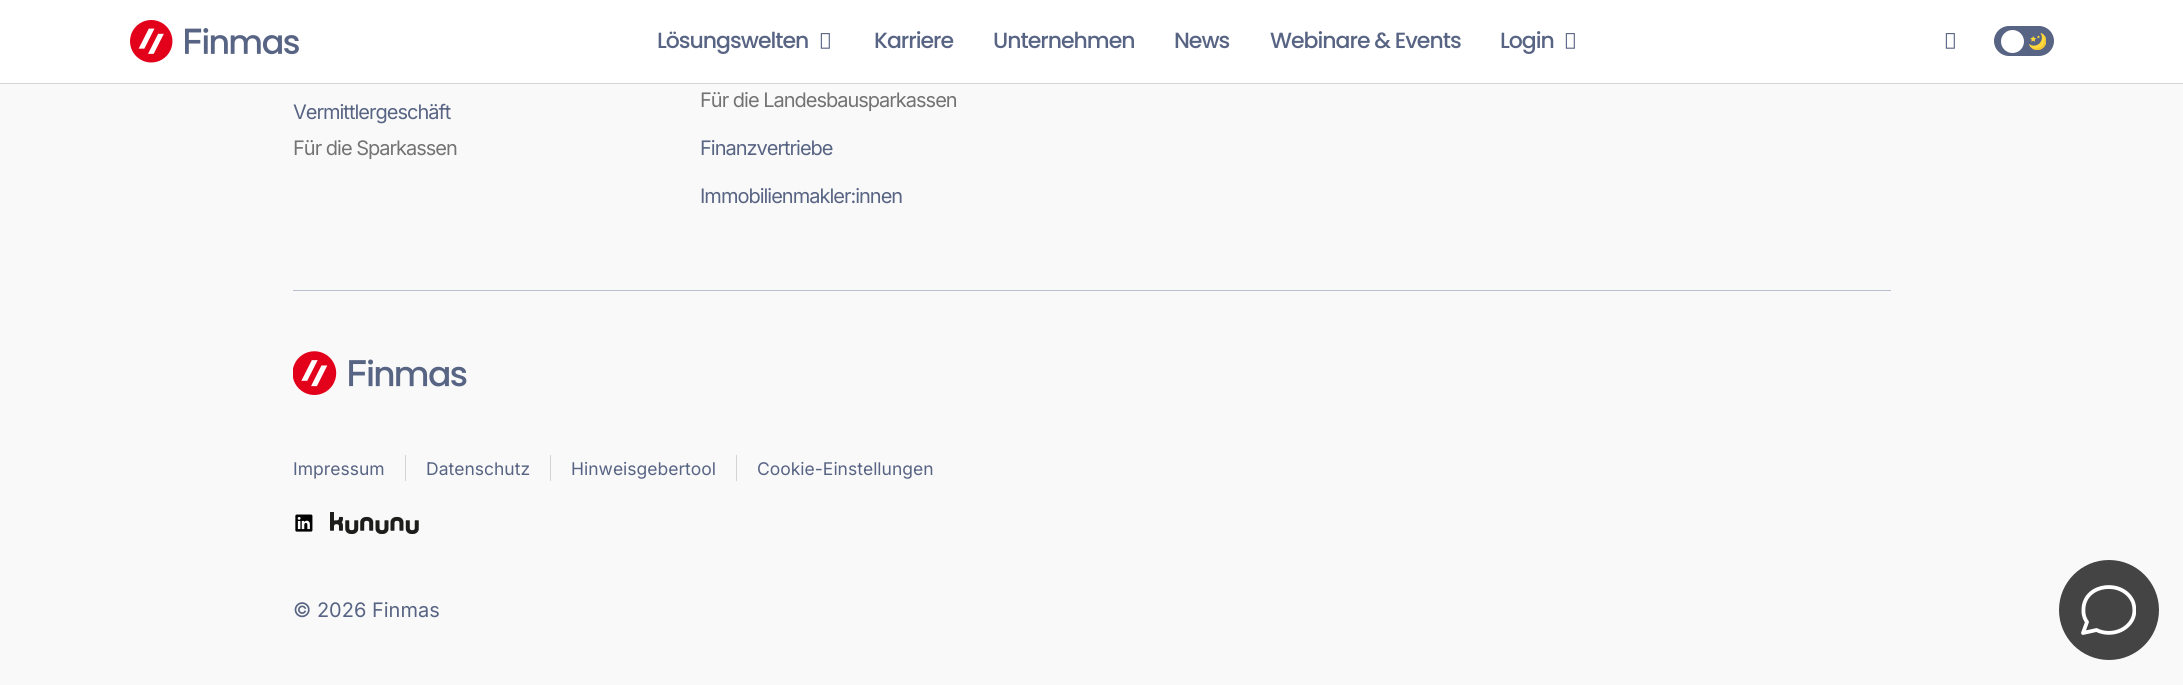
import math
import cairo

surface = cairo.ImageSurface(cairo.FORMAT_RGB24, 2183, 685)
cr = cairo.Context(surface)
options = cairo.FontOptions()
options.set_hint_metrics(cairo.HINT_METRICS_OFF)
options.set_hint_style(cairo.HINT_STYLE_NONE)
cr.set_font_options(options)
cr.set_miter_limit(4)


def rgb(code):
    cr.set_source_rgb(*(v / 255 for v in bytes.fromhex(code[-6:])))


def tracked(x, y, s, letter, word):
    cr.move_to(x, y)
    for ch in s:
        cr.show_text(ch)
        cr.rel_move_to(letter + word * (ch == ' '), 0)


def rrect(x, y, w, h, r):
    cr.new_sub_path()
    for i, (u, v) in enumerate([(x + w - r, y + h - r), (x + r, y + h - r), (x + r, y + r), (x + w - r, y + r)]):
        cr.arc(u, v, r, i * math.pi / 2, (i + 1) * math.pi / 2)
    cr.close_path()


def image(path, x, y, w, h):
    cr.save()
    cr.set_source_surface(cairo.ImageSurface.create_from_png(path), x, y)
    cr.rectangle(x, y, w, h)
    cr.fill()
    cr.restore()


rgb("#f9f9f9")
cr.paint()
rgb("#d4d4d4")
cr.rectangle(0, 83, 2183, 1)
cr.fill()
rgb("#ffffff")
cr.rectangle(0, 0, 2183, 83)
cr.fill()
image("img/1.png", 130, 20, 169, 43)
image("img/2.png", 820, 33, 10, 16)
image("img/3.png", 1565, 33, 10, 16)
image("img/3.png", 1945, 33, 10, 16)
rgb("#586483")
rrect(1994, 26, 60, 30, 15)
cr.fill()
image("img/5.png", 2001, 34, 3, 8)
rgb("#ffffff")
cr.arc(2012.5, 41.5, 11.5, 0, 2 * math.pi)
cr.fill()
image("img/4.png", 2029, 33, 17, 17)
rgb("#b8bfcd")
cr.rectangle(293, 290, 1598, 1)
cr.fill()
image("img/6.png", 293, 351, 174, 44)
for x, y, w, h, color in [
    (405, 455, 1, 26, "#d4d4d4"),
    (550, 455, 1, 26, "#d4d4d4"),
    (736, 455, 1, 26, "#d4d4d4"),
]:
    rgb(color)
    cr.rectangle(x, y, w, h)
    cr.fill()
image("img/7.png", 295, 514, 18, 18)
image("img/8.png", 330, 512, 89, 22)
rgb("#444444")
cr.arc(2109, 610, 50, 0, 2 * math.pi)
cr.fill()
cr.save()
cr.rectangle(2081, 583, 55, 55)
cr.clip()
cr.new_path()
cr.move_to(2083, 633)
cr.line_to(2087, 622)
cr.curve_to(2084, 618, 2083, 613, 2083.5, 608)
cr.curve_to(2085.5, 583, 2123.5, 579.5, 2133, 602)
cr.curve_to(2135, 608, 2135, 614.5, 2132, 620)
cr.curve_to(2125, 632.5, 2108.5, 636, 2096.5, 630)
cr.close_path()
rgb("#ffffff")
cr.set_line_width(3.8)
cr.set_line_cap(cairo.LINE_CAP_ROUND)
cr.set_line_join(cairo.LINE_JOIN_ROUND)
cr.stroke()
cr.restore()
cr.select_font_face("Poppins Medium")
cr.set_font_size(22)
rgb("#586483")
for x, y, s in [
    (657, 48, "Lösungswelten"),
    (874, 48, "Karriere"),
    (993, 48, "Unternehmen"),
    (1174, 48, "News"),
    (1270, 48, "Webinare & Events"),
    (1500, 48, "Login"),
]:
    tracked(x, y, s, -1, 0)
cr.select_font_face("Inter")
cr.set_font_size(20)
tracked(293, 119, "Vermittlergeschäft", -1, 0)
rgb("#737373")
tracked(293, 155, "Für die Sparkassen", -1, 0)
tracked(700, 107, "Für die Landesbausparkassen", -1, 0)
rgb("#586483")
tracked(700, 155, "Finanzvertriebe", -1, 0)
tracked(700, 203, "Immobilienmakler:innen", -1, 0)
cr.set_font_size(17.5)
for x, y, s in [
    (293, 475, "Impressum"),
    (426, 475, "Datenschutz"),
    (571, 475, "Hinweisgebertool"),
    (757, 475, "Cookie-Einstellungen"),
]:
    cr.move_to(x, y)
    cr.show_text(s)
cr.set_font_size(20)
cr.move_to(293, 617)
cr.show_text("© 2026 Finmas")
surface.write_to_png("page.png")
